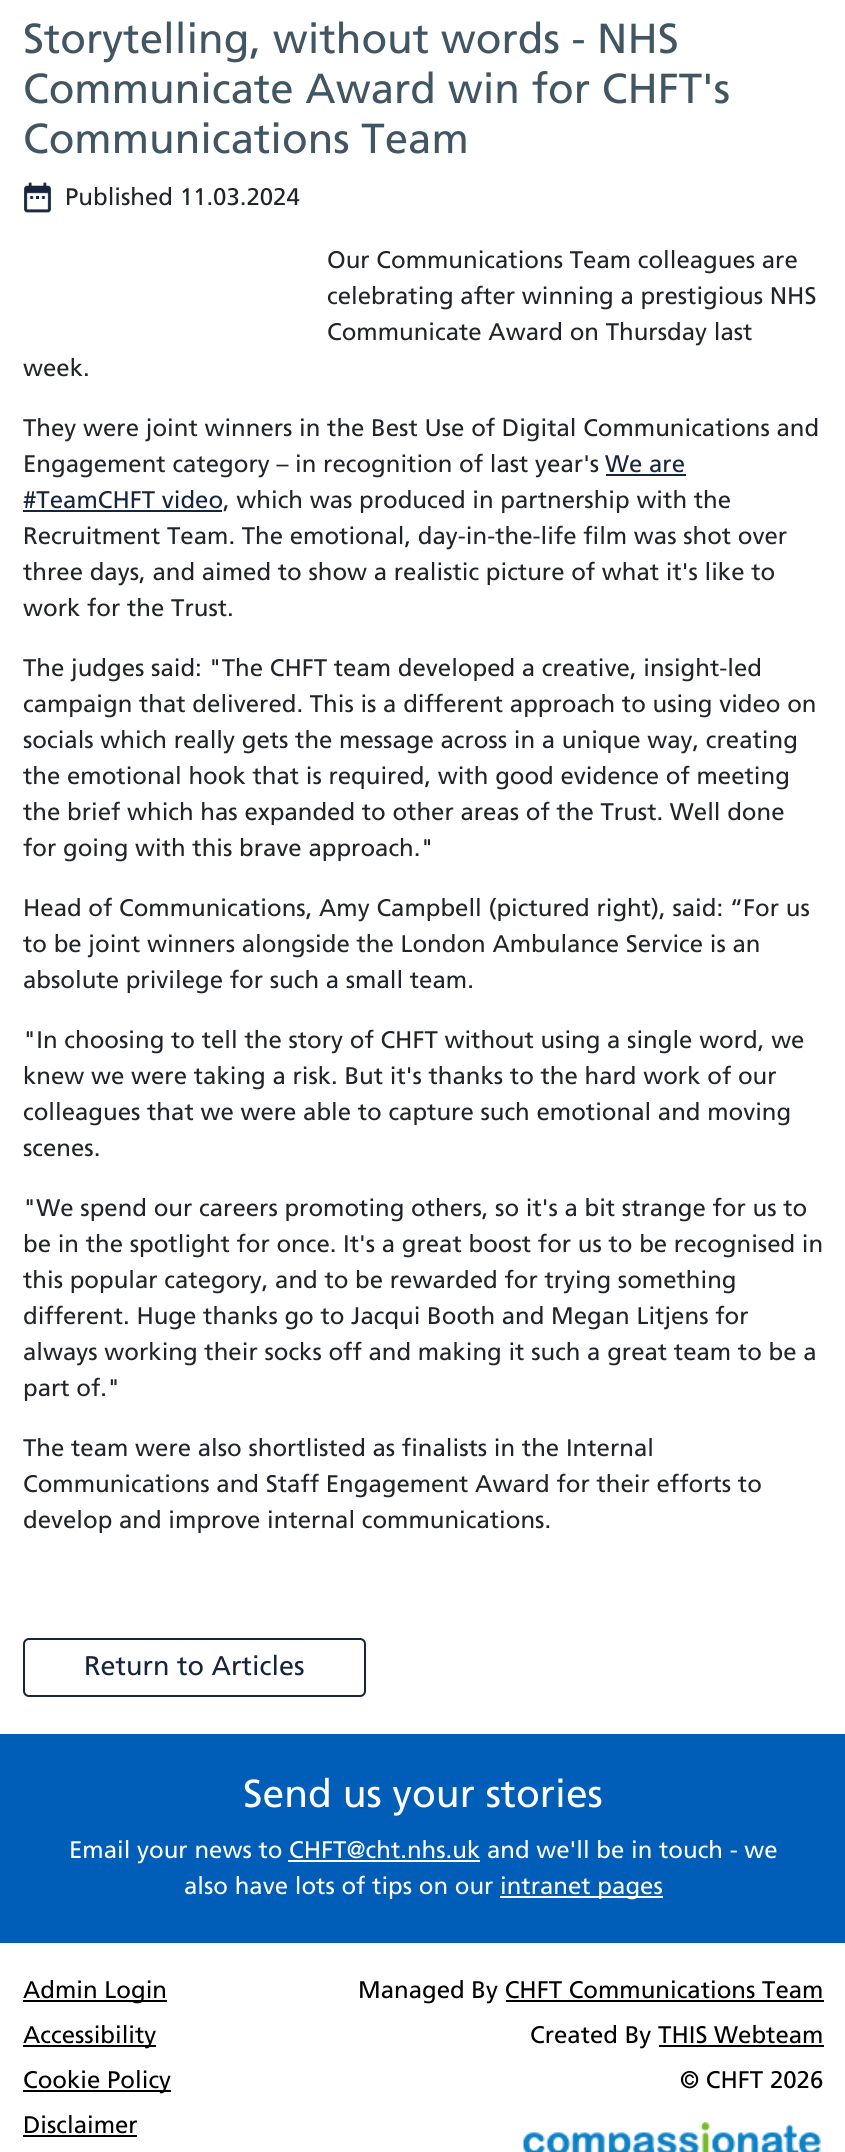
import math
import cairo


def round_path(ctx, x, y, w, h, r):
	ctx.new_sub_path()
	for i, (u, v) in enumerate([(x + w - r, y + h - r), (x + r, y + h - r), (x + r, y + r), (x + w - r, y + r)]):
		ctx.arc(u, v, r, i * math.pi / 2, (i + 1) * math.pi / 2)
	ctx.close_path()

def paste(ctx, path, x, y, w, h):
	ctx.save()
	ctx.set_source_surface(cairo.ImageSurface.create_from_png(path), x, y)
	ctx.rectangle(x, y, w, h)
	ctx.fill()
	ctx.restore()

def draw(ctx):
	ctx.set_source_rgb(1, 1, 1)
	ctx.paint()
	ctx.select_font_face('Frutiger')
	ctx.set_font_size(42)
	ctx.set_source_rgb(0.259, 0.333, 0.388)
	for x, y, s in [
		(23, 53, 'Storytelling, without words - NHS'),
		(23, 103, 'Communicate Award win for CHFT\'s'),
		(23, 153, 'Communications Team'),
	]:
		ctx.move_to(x, y)
		ctx.show_text(s)
	paste(ctx, 'media/1.png', 24, 182, 27, 31)
	ctx.set_font_size(24)
	ctx.set_source_rgb(0.129, 0.145, 0.161)
	for x, y, s in [
		(65, 205, 'Published 11.03.2024'),
		(327, 268, 'Our Communications Team colleagues are'),
		(327, 304, 'celebrating after winning a prestigious NHS'),
		(327, 340, 'Communicate Award on Thursday last'),
		(23, 376, 'week.'),
		(23, 436, 'They were joint winners in the Best Use of Digital Communications and'),
		(23, 472, 'Engagement category – in recognition of last year\'s'),
	]:
		ctx.move_to(x, y)
		ctx.show_text(s)
	ctx.set_source_rgb(0.086, 0.141, 0.243)
	ctx.move_to(605, 472)
	ctx.show_text('We are')
	ctx.rectangle(606, 474, 80, 2)
	ctx.fill()
	ctx.move_to(23, 508)
	ctx.show_text('#TeamCHFT video')
	ctx.rectangle(23, 510, 199, 2)
	ctx.fill()
	ctx.set_source_rgb(0.129, 0.145, 0.161)
	for x, y, s in [
		(223, 508, ', which was produced in partnership with the'),
		(23, 544, 'Recruitment Team. The emotional, day-in-the-life film was shot over'),
		(23, 580, 'three days, and aimed to show a realistic picture of what it\'s like to'),
		(23, 616, 'work for the Trust.'),
		(23, 676, 'The judges said: "The CHFT team developed a creative, insight-led'),
		(23, 712, 'campaign that delivered. This is a different approach to using video on'),
		(23, 748, 'socials which really gets the message across in a unique way, creating'),
		(23, 784, 'the emotional hook that is required, with good evidence of meeting'),
		(23, 820, 'the brief which has expanded to other areas of the Trust. Well done'),
		(23, 856, 'for going with this brave approach."'),
		(23, 916, 'Head of Communications, Amy Campbell (pictured right), said: “For us'),
		(23, 952, 'to be joint winners alongside the London Ambulance Service is an'),
		(23, 988, 'absolute privilege for such a small team.'),
		(23, 1048, '"In choosing to tell the story of CHFT without using a single word, we'),
		(23, 1084, 'knew we were taking a risk. But it\'s thanks to the hard work of our'),
		(23, 1120, 'colleagues that we were able to capture such emotional and moving'),
		(23, 1156, 'scenes.'),
		(23, 1216, '"We spend our careers promoting others, so it\'s a bit strange for us to'),
		(23, 1252, 'be in the spotlight for once. It\'s a great boost for us to be recognised in'),
		(23, 1288, 'this popular category, and to be rewarded for trying something'),
		(23, 1324, 'different. Huge thanks go to Jacqui Booth and Megan Litjens for'),
		(23, 1360, 'always working their socks off and making it such a great team to be a'),
		(23, 1396, 'part of."'),
		(23, 1456, 'The team were also shortlisted as finalists in the Internal'),
		(23, 1492, 'Communications and Staff Engagement Award for their efforts to'),
		(23, 1528, 'develop and improve internal communications.'),
	]:
		ctx.move_to(x, y)
		ctx.show_text(s)
	round_path(ctx, 24, 1639, 341, 57, 5)
	ctx.set_source_rgb(0.09, 0.141, 0.239)
	ctx.stroke()
	ctx.set_font_size(27)
	ctx.set_source_rgb(0.086, 0.141, 0.243)
	ctx.move_to(84, 1675)
	ctx.show_text('Return to Articles')
	ctx.set_source_rgb(0, 0.369, 0.722)
	ctx.rectangle(0, 1734, 845, 209)
	ctx.fill()
	ctx.set_font_size(39)
	ctx.set_source_rgb(1, 1, 1)
	ctx.move_to(243, 1807)
	ctx.show_text('Send us your stories')
	ctx.set_font_size(24)
	ctx.move_to(69, 1858)
	ctx.show_text('Email your news to CHFT@cht.nhs.uk and we\'ll be in touch - we')
	ctx.rectangle(288, 1860, 192, 2)
	ctx.fill()
	ctx.move_to(184, 1894)
	ctx.show_text('also have lots of tips on our')
	ctx.rectangle(500, 1896, 163, 2)
	ctx.fill()
	ctx.move_to(500, 1894)
	ctx.show_text('intranet pages')
	ctx.set_source_rgb(0, 0, 0)
	ctx.rectangle(23, 2000, 144, 2)
	ctx.fill()
	ctx.move_to(23, 1998)
	ctx.show_text('Admin Login')
	ctx.rectangle(23, 2045, 133, 2)
	ctx.fill()
	ctx.move_to(23, 2043)
	ctx.show_text('Accessibility')
	ctx.rectangle(23, 2090, 148, 2)
	ctx.fill()
	ctx.move_to(23, 2088)
	ctx.show_text('Cookie Policy')
	ctx.move_to(23, 2133)
	ctx.show_text('Disclaimer')
	ctx.rectangle(23, 2135, 114, 2)
	ctx.fill()
	ctx.move_to(358, 1998)
	ctx.show_text('Managed By CHFT Communications Team')
	ctx.rectangle(506, 2000, 318, 2)
	ctx.fill()
	ctx.move_to(530, 2043)
	ctx.show_text('Created By THIS Webteam')
	ctx.rectangle(659, 2045, 165, 2)
	ctx.fill()
	ctx.move_to(680, 2088)
	ctx.show_text('© CHFT 2026')
	paste(ctx, 'media/2.png', 523, 2122, 298, 30)


surface = cairo.ImageSurface(cairo.FORMAT_RGB24, 845, 2152)
ctx = cairo.Context(surface)
options = cairo.FontOptions()
options.set_hint_metrics(cairo.HINT_METRICS_OFF)
options.set_hint_style(cairo.HINT_STYLE_NONE)
ctx.set_font_options(options)
ctx.set_miter_limit(4)
draw(ctx)
surface.write_to_png('image.png')
